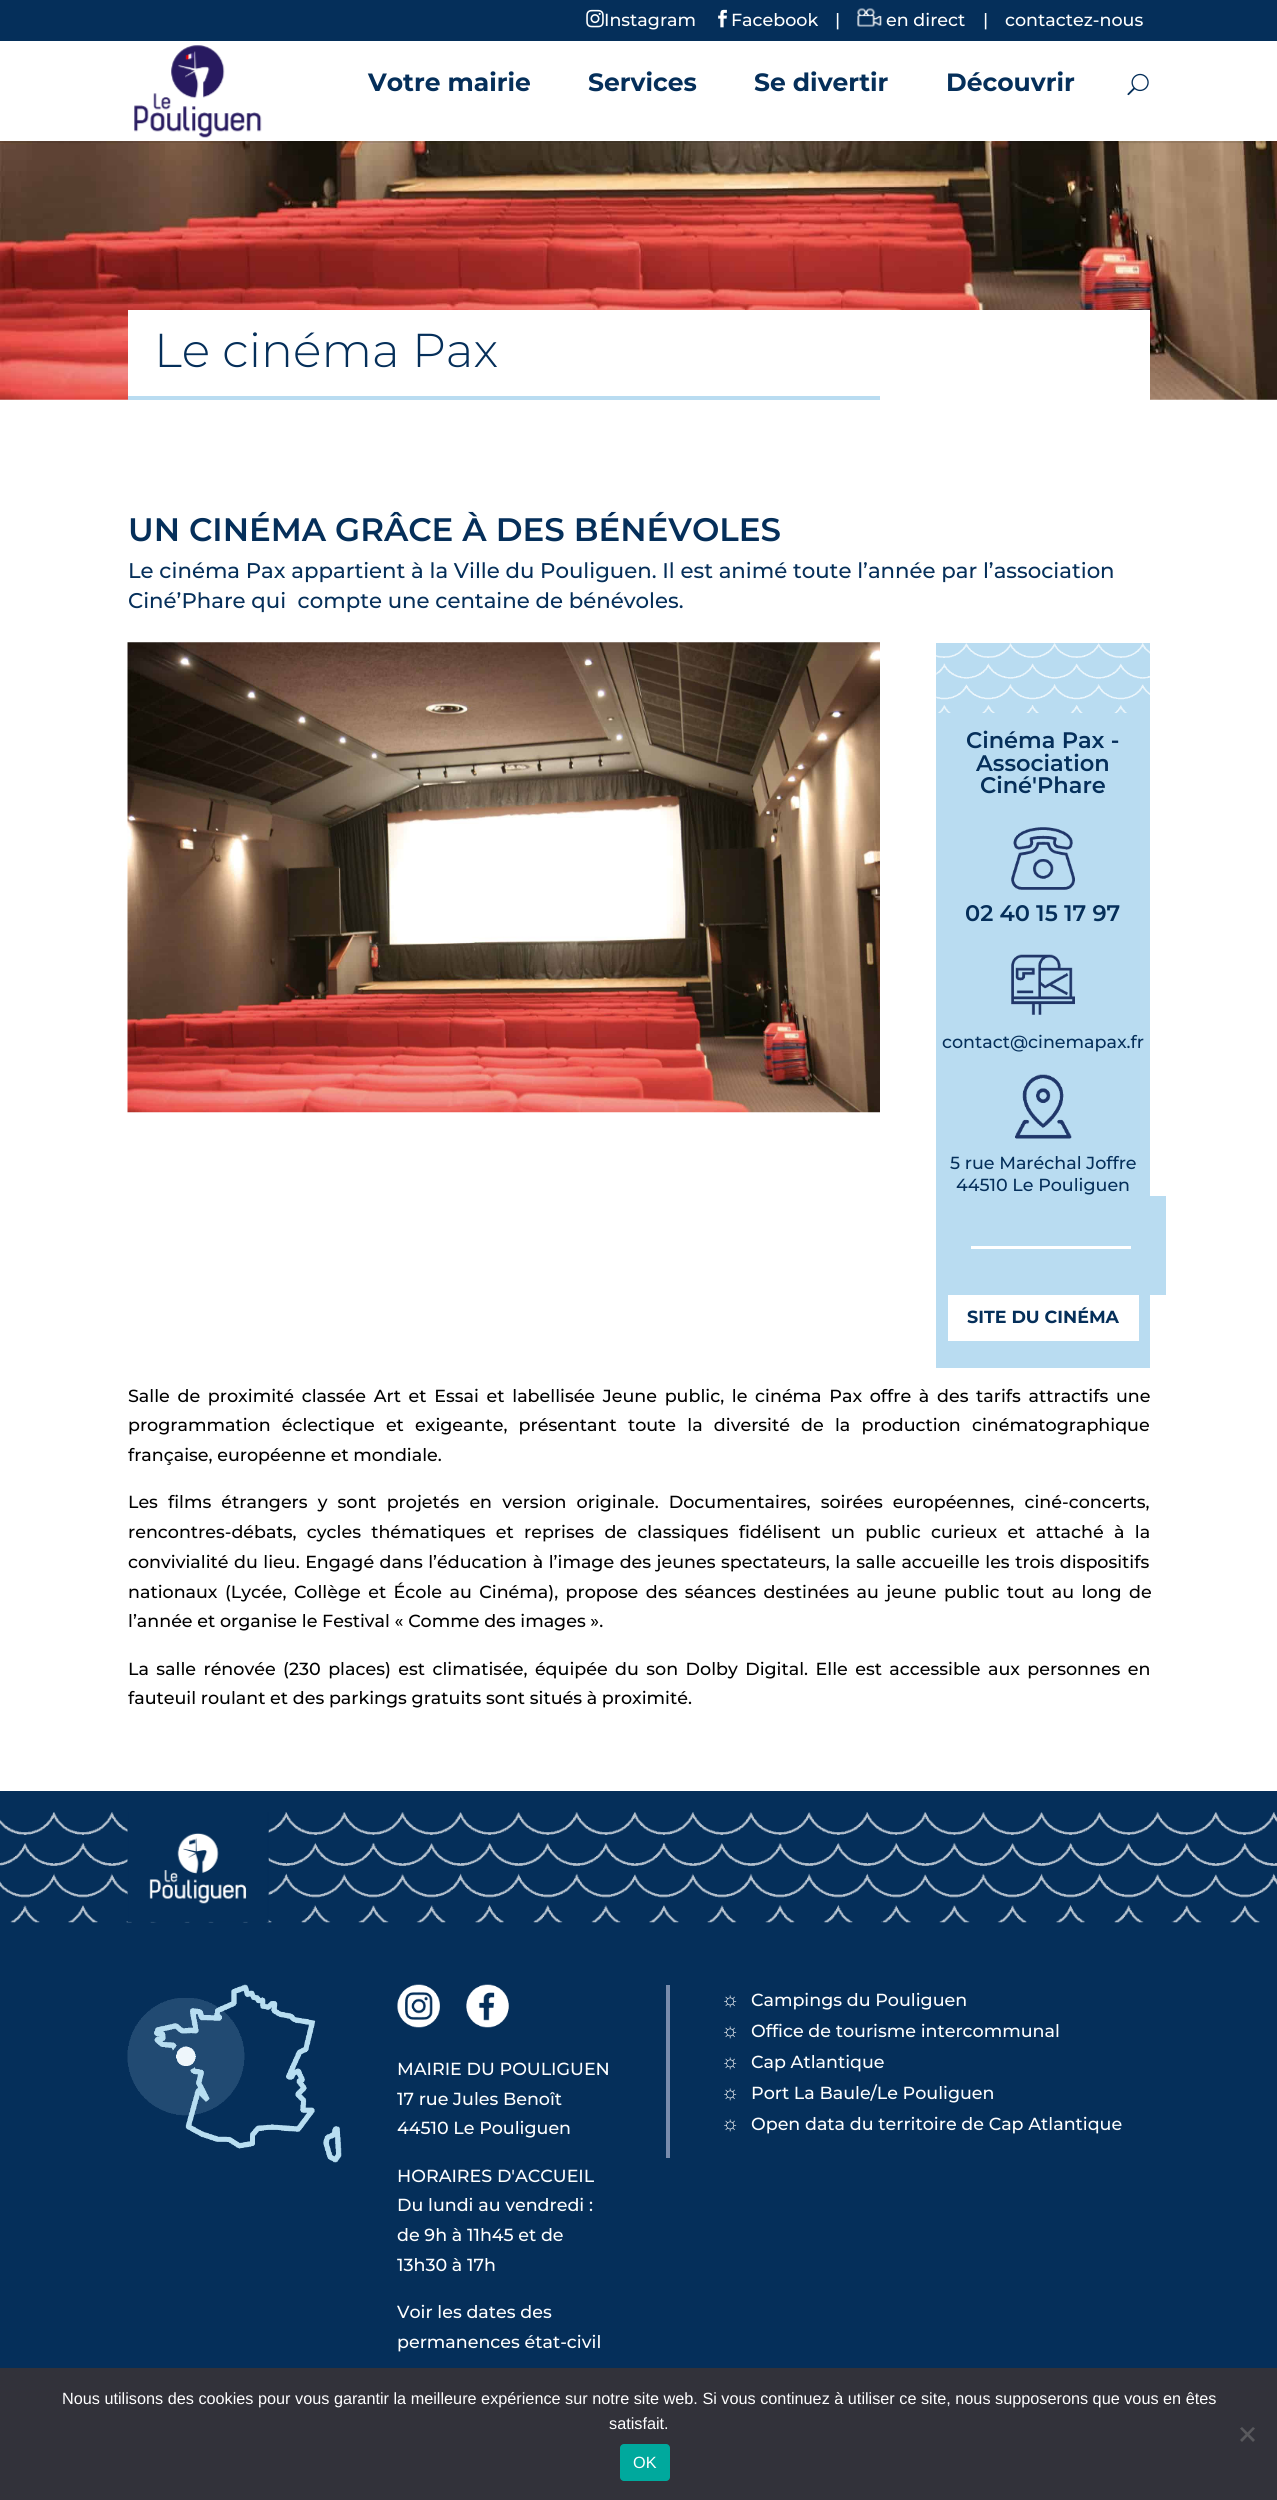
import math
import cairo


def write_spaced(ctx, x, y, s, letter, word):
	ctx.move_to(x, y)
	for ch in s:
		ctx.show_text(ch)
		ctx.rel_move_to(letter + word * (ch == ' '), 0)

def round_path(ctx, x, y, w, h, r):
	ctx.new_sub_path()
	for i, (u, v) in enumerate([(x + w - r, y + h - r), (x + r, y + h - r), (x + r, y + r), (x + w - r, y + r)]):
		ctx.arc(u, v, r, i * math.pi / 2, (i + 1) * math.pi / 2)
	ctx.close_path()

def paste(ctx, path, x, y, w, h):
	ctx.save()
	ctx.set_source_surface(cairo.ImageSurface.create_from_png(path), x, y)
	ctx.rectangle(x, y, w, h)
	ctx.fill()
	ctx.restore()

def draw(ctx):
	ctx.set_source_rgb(1, 1, 1)
	ctx.paint()
	paste(ctx, 'media/6.png', 0, 141, 1277, 259)
	ctx.set_source_rgba(0, 0, 0, 0.1)
	ctx.new_path()
	ctx.move_to(0, 141)
	ctx.line_to(0, 143)
	ctx.line_to(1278, 143)
	ctx.line_to(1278, 1)
	ctx.line_to(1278, 141)
	ctx.close_path()
	ctx.fill()
	ctx.set_source_rgb(0.02, 0.184, 0.353)
	ctx.rectangle(0, 0, 1277, 41)
	ctx.fill()
	paste(ctx, 'media/1.png', 586, 9, 18, 19)
	ctx.select_font_face('Montserrat Medium')
	ctx.set_font_size(17.5)
	ctx.set_source_rgb(1, 1, 1)
	ctx.move_to(604, 26)
	ctx.show_text('Instagram')
	paste(ctx, 'media/2.png', 718, 9, 9, 19)
	ctx.move_to(731, 26)
	ctx.show_text('Facebook')
	ctx.move_to(835, 26)
	ctx.show_text('|')
	paste(ctx, 'media/3.png', 857, 8, 25, 19)
	for x, y, s in [
		(886, 26, 'en direct'),
		(983, 26, '|'),
		(1005, 26, 'contactez-nous'),
	]:
		ctx.move_to(x, y)
		ctx.show_text(s)
	paste(ctx, 'media/4.png', 134, 45, 128, 93)
	ctx.select_font_face('Montserrat', cairo.FONT_SLANT_NORMAL, cairo.FONT_WEIGHT_BOLD)
	ctx.set_font_size(25)
	ctx.set_source_rgb(0.02, 0.184, 0.353)
	for x, y, s in [
		(368, 91, 'Votre mairie'),
		(588, 91, 'Services'),
		(754, 91, 'Se divertir'),
		(946, 91, 'Découvrir'),
	]:
		ctx.move_to(x, y)
		ctx.show_text(s)
	paste(ctx, 'media/5.png', 1127, 73, 22, 23)
	ctx.set_source_rgb(1, 1, 1)
	ctx.rectangle(128, 310, 1022, 90)
	ctx.fill()
	ctx.set_source_rgb(0.725, 0.863, 0.945)
	ctx.rectangle(128, 396, 752, 4)
	ctx.fill()
	ctx.select_font_face('Montserrat Light')
	ctx.set_font_size(47.5)
	ctx.set_source_rgb(0.02, 0.184, 0.353)
	ctx.move_to(154, 367)
	ctx.show_text('Le cinéma Pax')
	ctx.select_font_face('Montserrat SemiBold')
	ctx.set_font_size(32.5)
	ctx.move_to(128, 541)
	ctx.show_text('UN CINÉMA GRÂCE À DES BÉNÉVOLES')
	ctx.select_font_face('Montserrat Medium')
	ctx.set_font_size(21.25)
	ctx.move_to(128, 578)
	ctx.show_text('Le cinéma Pax appartient à la Ville du Pouliguen. Il est animé toute l’année par l’association')
	ctx.move_to(128, 608)
	ctx.show_text('Ciné’Phare qui  compte une centaine de bénévoles.')
	paste(ctx, 'media/7.png', 127, 642, 753, 471)
	ctx.set_source_rgb(0.725, 0.863, 0.945)
	ctx.rectangle(936, 643, 214, 725)
	ctx.fill()
	paste(ctx, 'media/8.png', 936, 643, 214, 70)
	ctx.select_font_face('Montserrat SemiBold')
	ctx.set_font_size(22.5)
	ctx.set_source_rgb(0.02, 0.184, 0.353)
	for x, y, s in [
		(966, 748, 'Cinéma Pax -'),
		(976, 771, 'Association'),
		(980, 793, 'Ciné\'Phare'),
	]:
		ctx.move_to(x, y)
		ctx.show_text(s)
	paste(ctx, 'media/9.png', 1011, 827, 64, 63)
	ctx.move_to(965, 921)
	ctx.show_text('02 40 15 17 97')
	paste(ctx, 'media/10.png', 1011, 954, 64, 61)
	ctx.select_font_face('Montserrat Medium')
	ctx.set_font_size(17.5)
	ctx.move_to(942, 1048)
	ctx.show_text('contact@cinemapax.fr')
	paste(ctx, 'media/11.png', 1015, 1074, 57, 65)
	ctx.move_to(950, 1169)
	ctx.show_text('5 rue Maréchal Joffre')
	ctx.move_to(956, 1191)
	ctx.show_text('44510 Le Pouliguen')
	ctx.set_source_rgb(0.725, 0.863, 0.945)
	ctx.rectangle(1150, 1196, 16, 99)
	ctx.fill()
	ctx.set_source_rgb(1, 1, 1)
	ctx.rectangle(971, 1246, 160, 3)
	ctx.rectangle(948, 1295, 191, 46)
	ctx.fill()
	ctx.select_font_face('Montserrat', cairo.FONT_SLANT_NORMAL, cairo.FONT_WEIGHT_BOLD)
	ctx.set_source_rgb(0.02, 0.184, 0.353)
	ctx.move_to(967, 1323)
	ctx.show_text('SITE DU CINÉMA')
	ctx.select_font_face('Montserrat Medium')
	ctx.set_source_rgb(0, 0, 0)
	write_spaced(ctx, 128, 1402, 'Salle de proximité classée Art et Essai et labellisée Jeune public, le cinéma Pax offre à des tarifs attractifs une', 0, 3)
	write_spaced(ctx, 128, 1431, 'programmation éclectique et exigeante, présentant toute la diversité de la production cinématographique', 0, 6.5)
	ctx.move_to(128, 1461)
	ctx.show_text('française, européenne et mondiale.')
	write_spaced(ctx, 128, 1508, 'Les films étrangers y sont projetés en version originale. Documentaires, soirées européennes, ciné-concerts,', 0, 5.4)
	write_spaced(ctx, 128, 1538, 'rencontres-débats, cycles thématiques et reprises de classiques fidélisent un public curieux et attaché à la', 0, 5.6)
	write_spaced(ctx, 128, 1568, 'convivialité du lieu. Engagé dans l’éducation à l’image des jeunes spectateurs, la salle accueille les trois dispositifs', 0, 0.8)
	write_spaced(ctx, 128, 1598, 'nationaux (Lycée, Collège et École au Cinéma), propose des séances destinées au jeune public tout au long de', 0, 2.75)
	ctx.move_to(128, 1627)
	ctx.show_text('l’année et organise le Festival « Comme des images ».')
	write_spaced(ctx, 128, 1675, 'La salle rénovée (230 places) est climatisée, équipée du son Dolby Digital. Elle est accessible aux personnes en', 0, 2.75)
	ctx.move_to(128, 1704)
	ctx.show_text('fauteuil roulant et des parkings gratuits sont situés à proximité.')
	ctx.set_source_rgb(0.02, 0.184, 0.353)
	ctx.rectangle(0, 1791, 1277, 577)
	ctx.fill()
	paste(ctx, 'media/12.png', 0, 1812, 1277, 111)
	paste(ctx, 'media/13.png', 127, 1812, 142, 111)
	paste(ctx, 'media/14.png', 127, 1984, 215, 179)
	paste(ctx, 'media/15.png', 397, 1984, 43, 44)
	paste(ctx, 'media/16.png', 466, 1984, 43, 44)
	ctx.set_source_rgb(1, 1, 1)
	for x, y, s in [
		(397, 2075, 'MAIRIE DU POULIGUEN'),
		(397, 2105, '17 rue Jules Benoît'),
		(397, 2134, '44510 Le Pouliguen'),
		(397, 2182, 'HORAIRES D\'ACCUEIL'),
		(397, 2211, 'Du lundi au vendredi :'),
		(397, 2241, 'de 9h à 11h45 et de'),
		(397, 2271, '13h30 à 17h'),
		(397, 2318, 'Voir les dates des'),
		(397, 2348, 'permanences état-civil'),
	]:
		ctx.move_to(x, y)
		ctx.show_text(s)
	ctx.set_source_rgb(0.475, 0.549, 0.678)
	ctx.rectangle(666, 1985, 4, 173)
	ctx.fill()
	ctx.select_font_face('Liberation Sans')
	ctx.set_font_size(20)
	ctx.set_source_rgb(1, 1, 1)
	ctx.move_to(721, 2006)
	ctx.show_text('☼')
	ctx.select_font_face('Montserrat Medium')
	ctx.set_font_size(17.5)
	ctx.move_to(751, 2006)
	ctx.show_text('Campings du Pouliguen')
	ctx.select_font_face('Liberation Sans')
	ctx.set_font_size(20)
	ctx.move_to(721, 2037)
	ctx.show_text('☼')
	ctx.select_font_face('Montserrat Medium')
	ctx.set_font_size(17.5)
	ctx.move_to(751, 2037)
	ctx.show_text('Office de tourisme intercommunal')
	ctx.select_font_face('Liberation Sans')
	ctx.set_font_size(20)
	ctx.move_to(721, 2068)
	ctx.show_text('☼')
	ctx.select_font_face('Montserrat Medium')
	ctx.set_font_size(17.5)
	ctx.move_to(751, 2068)
	ctx.show_text('Cap Atlantique')
	ctx.select_font_face('Liberation Sans')
	ctx.set_font_size(20)
	ctx.move_to(721, 2099)
	ctx.show_text('☼')
	ctx.select_font_face('Montserrat Medium')
	ctx.set_font_size(17.5)
	ctx.move_to(751, 2099)
	ctx.show_text('Port La Baule/Le Pouliguen')
	ctx.select_font_face('Liberation Sans')
	ctx.set_font_size(20)
	ctx.move_to(721, 2130)
	ctx.show_text('☼')
	ctx.select_font_face('Montserrat Medium')
	ctx.set_font_size(17.5)
	ctx.move_to(751, 2130)
	ctx.show_text('Open data du territoire de Cap Atlantique')
	ctx.set_source_rgb(0.196, 0.196, 0.227)
	ctx.rectangle(0, 2368, 1277, 132)
	ctx.fill()
	ctx.select_font_face('Liberation Sans')
	ctx.set_font_size(16.25)
	ctx.set_source_rgb(1, 1, 1)
	ctx.move_to(62, 2404)
	ctx.show_text('Nous utilisons des cookies pour vous garantir la meilleure expérience sur notre site web. Si vous continuez à utiliser ce site, nous supposerons que vous en êtes')
	ctx.move_to(609, 2429)
	ctx.show_text('satisfait.')
	ctx.set_source_rgb(0.349, 0.349, 0.365)
	ctx.new_path()
	ctx.move_to(1253, 2427)
	ctx.line_to(1255, 2428.5)
	ctx.line_to(1242, 2442)
	ctx.line_to(1240, 2440)
	ctx.close_path()
	ctx.fill()
	ctx.new_path()
	ctx.move_to(1240, 2428.5)
	ctx.line_to(1242, 2427)
	ctx.line_to(1255, 2440)
	ctx.line_to(1253, 2442)
	ctx.close_path()
	ctx.fill()
	ctx.set_source_rgb(0, 0.663, 0.616)
	round_path(ctx, 620, 2444, 50, 37, 4)
	ctx.fill()
	ctx.set_source_rgb(1, 1, 1)
	ctx.move_to(633, 2468)
	ctx.show_text('OK')


surface = cairo.ImageSurface(cairo.FORMAT_RGB24, 1277, 2500)
ctx = cairo.Context(surface)
options = cairo.FontOptions()
options.set_hint_metrics(cairo.HINT_METRICS_OFF)
options.set_hint_style(cairo.HINT_STYLE_NONE)
ctx.set_font_options(options)
ctx.set_miter_limit(4)
draw(ctx)
surface.write_to_png('image.png')
